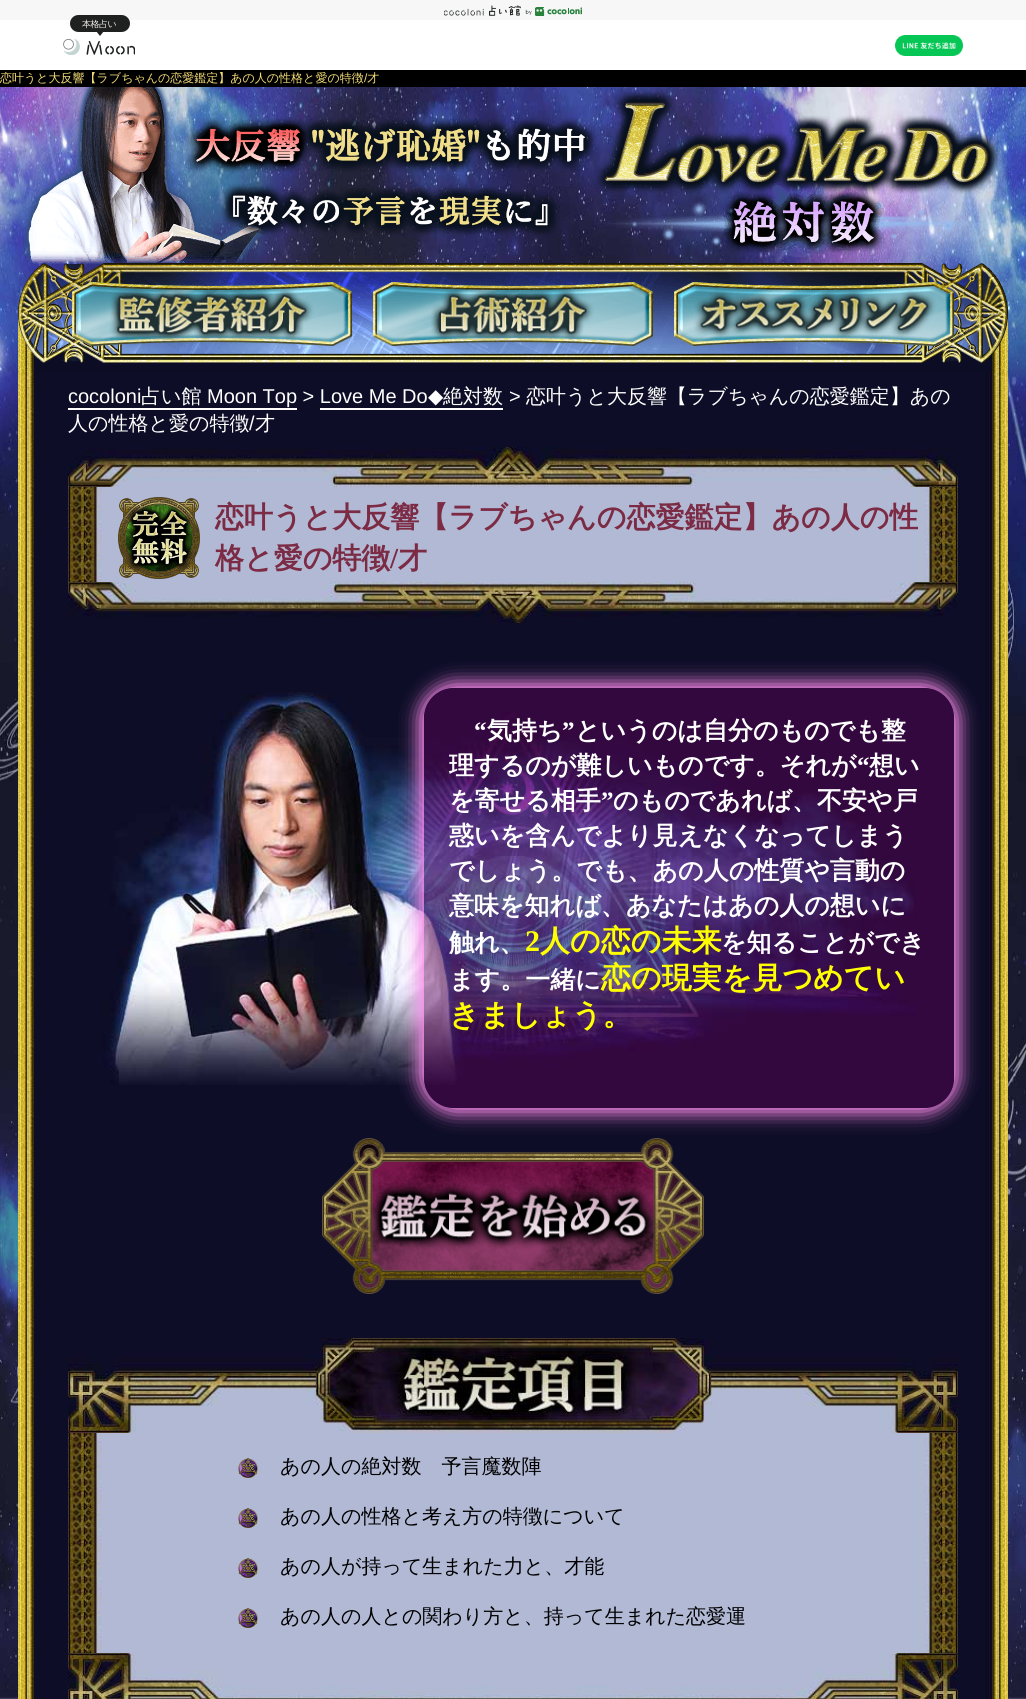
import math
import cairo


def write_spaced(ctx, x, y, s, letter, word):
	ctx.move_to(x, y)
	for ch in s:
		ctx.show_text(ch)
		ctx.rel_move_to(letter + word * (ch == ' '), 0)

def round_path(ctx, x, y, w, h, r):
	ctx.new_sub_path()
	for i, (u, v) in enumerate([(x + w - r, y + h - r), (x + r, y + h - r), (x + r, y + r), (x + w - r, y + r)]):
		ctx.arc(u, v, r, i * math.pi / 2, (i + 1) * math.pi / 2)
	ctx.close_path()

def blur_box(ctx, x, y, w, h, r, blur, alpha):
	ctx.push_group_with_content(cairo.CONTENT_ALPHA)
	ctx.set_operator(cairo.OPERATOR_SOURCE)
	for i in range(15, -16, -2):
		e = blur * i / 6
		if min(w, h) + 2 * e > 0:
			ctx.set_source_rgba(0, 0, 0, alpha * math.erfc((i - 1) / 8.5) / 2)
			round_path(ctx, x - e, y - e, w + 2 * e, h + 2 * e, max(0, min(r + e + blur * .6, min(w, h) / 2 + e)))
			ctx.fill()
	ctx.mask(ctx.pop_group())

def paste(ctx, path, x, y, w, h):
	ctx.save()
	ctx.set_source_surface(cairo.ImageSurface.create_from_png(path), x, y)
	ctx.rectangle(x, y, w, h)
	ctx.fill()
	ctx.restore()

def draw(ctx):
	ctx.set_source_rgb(1, 1, 1)
	ctx.paint()
	ctx.set_source_rgb(0.965, 0.965, 0.965)
	ctx.rectangle(0, 0, 1026, 20)
	ctx.fill()
	paste(ctx, 'media/1.png', 444, 5, 138, 11)
	ctx.set_source_rgb(0.122, 0.129, 0.129)
	round_path(ctx, 70, 15, 60, 17, 8.5)
	ctx.fill()
	ctx.select_font_face('WenQuanYi Zen Hei Medium')
	ctx.set_font_size(9)
	ctx.set_source_rgb(0.965, 0.957, 0.933)
	write_spaced(ctx, 82, 27, '本格占い', -0.5, 0)
	ctx.set_source_rgb(0.122, 0.129, 0.129)
	ctx.new_path()
	ctx.move_to(96, 31)
	ctx.line_to(104, 31)
	ctx.line_to(100, 36)
	ctx.close_path()
	ctx.fill()
	paste(ctx, 'media/2.png', 63, 39, 72, 16)
	paste(ctx, 'media/3.png', 895, 35, 68, 21)
	ctx.set_source_rgb(0, 0, 0)
	ctx.rectangle(0, 70, 1026, 17)
	ctx.fill()
	ctx.set_font_size(12)
	ctx.set_source_rgb(0.957, 0.867, 0.467)
	ctx.move_to(0, 82)
	ctx.show_text('恋叶うと大反響【ラブちゃんの恋愛鑑定】あの人の性格と愛の特徴 才')
	ctx.select_font_face('Liberation Sans')
	ctx.move_to(364, 82)
	ctx.show_text('/')
	paste(ctx, 'media/4.png', 0, 87, 1026, 1612)
	paste(ctx, 'media/5.png', 23, 87, 977, 177)
	paste(ctx, 'media/6.png', 23, 87, 977, 177)
	paste(ctx, 'media/7.png', 18, 263, 990, 110)
	paste(ctx, 'media/8.png', 72, 282, 280, 64)
	paste(ctx, 'media/9.png', 373, 282, 280, 64)
	paste(ctx, 'media/10.png', 674, 282, 280, 64)
	paste(ctx, 'media/11.png', 18, 373, 990, 74)
	ctx.set_font_size(20)
	ctx.set_source_rgb(1, 1, 1)
	ctx.move_to(68, 403)
	ctx.show_text('cocoloni')
	ctx.select_font_face('WenQuanYi Zen Hei Medium')
	ctx.move_to(141, 403)
	ctx.show_text('占い館')
	ctx.select_font_face('Liberation Sans')
	ctx.move_to(207, 403)
	ctx.show_text('Moon Top > Love Me Do')
	ctx.rectangle(68, 408, 229, 2)
	ctx.fill()
	ctx.select_font_face('DejaVu Sans')
	ctx.move_to(428, 403)
	ctx.show_text('◆')
	ctx.rectangle(320, 408, 183, 2)
	ctx.fill()
	ctx.select_font_face('WenQuanYi Zen Hei Medium')
	ctx.move_to(443, 403)
	ctx.show_text('絶対数')
	ctx.select_font_face('Liberation Sans')
	ctx.move_to(509, 403)
	ctx.show_text('>')
	ctx.select_font_face('WenQuanYi Zen Hei Medium')
	ctx.move_to(526, 403)
	ctx.show_text('恋叶うと大反響【ラブちゃんの恋愛鑑定】あの')
	ctx.move_to(68, 430)
	ctx.show_text('人の性格と愛の特徴')
	ctx.select_font_face('Liberation Sans')
	ctx.move_to(249, 430)
	ctx.show_text('/')
	ctx.select_font_face('WenQuanYi Zen Hei Medium')
	ctx.move_to(255, 430)
	ctx.show_text('才')
	paste(ctx, 'media/12.png', 18, 447, 990, 1252)
	paste(ctx, 'media/13.png', 68, 447, 890, 40)
	paste(ctx, 'media/14.png', 68, 487, 890, 95)
	paste(ctx, 'media/15.png', 118, 497, 82, 82)
	ctx.select_font_face('WenQuanYi Zen Hei', cairo.FONT_SLANT_NORMAL, cairo.FONT_WEIGHT_BOLD)
	ctx.set_font_size(29)
	ctx.set_source_rgb(0.486, 0.169, 0.267)
	ctx.move_to(215, 527)
	ctx.show_text('恋叶うと大反響【ラブちゃんの恋愛鑑定】あの人の性')
	ctx.move_to(215, 568)
	ctx.show_text('格と愛の特徴')
	ctx.select_font_face('Liberation Serif', cairo.FONT_SLANT_NORMAL, cairo.FONT_WEIGHT_BOLD)
	ctx.move_to(390, 568)
	ctx.show_text('/')
	ctx.select_font_face('WenQuanYi Zen Hei', cairo.FONT_SLANT_NORMAL, cairo.FONT_WEIGHT_BOLD)
	ctx.move_to(398, 568)
	ctx.show_text('才')
	paste(ctx, 'media/16.png', 68, 582, 890, 41)
	paste(ctx, 'media/17.png', 103, 692, 813, 393)
	ctx.save()
	ctx.set_fill_rule(cairo.FILL_RULE_EVEN_ODD)
	ctx.new_path()
	ctx.move_to(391, 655)
	ctx.line_to(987, 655)
	ctx.line_to(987, 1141)
	ctx.line_to(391, 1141)
	ctx.close_path()
	ctx.move_to(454, 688)
	ctx.line_to(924, 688)
	ctx.curve_to(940.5, 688, 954, 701.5, 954, 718)
	ctx.line_to(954, 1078)
	ctx.curve_to(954, 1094.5, 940.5, 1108, 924, 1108)
	ctx.line_to(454, 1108)
	ctx.curve_to(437.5, 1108, 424, 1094.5, 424, 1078)
	ctx.line_to(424, 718)
	ctx.curve_to(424, 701.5, 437.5, 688, 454, 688)
	ctx.close_path()
	ctx.clip()
	ctx.set_source_rgb(0.988, 0.537, 0.918)
	blur_box(ctx, 424, 688, 530, 420, 30, 10.5, 1)
	blur_box(ctx, 424, 688, 530, 420, 30, 10.5, 1)
	ctx.restore()
	ctx.set_source_rgba(0.42, 0.008, 0.396, 0.4)
	round_path(ctx, 424, 688, 530, 420, 30)
	ctx.fill()
	ctx.select_font_face('Liberation Serif', cairo.FONT_SLANT_NORMAL, cairo.FONT_WEIGHT_BOLD)
	ctx.set_font_size(25)
	ctx.set_source_rgb(1, 1, 1)
	ctx.move_to(474, 739)
	ctx.show_text('“')
	ctx.select_font_face('WenQuanYi Zen Hei', cairo.FONT_SLANT_NORMAL, cairo.FONT_WEIGHT_BOLD)
	ctx.move_to(487, 739)
	ctx.show_text('気持ち')
	ctx.select_font_face('Liberation Serif', cairo.FONT_SLANT_NORMAL, cairo.FONT_WEIGHT_BOLD)
	ctx.move_to(562, 739)
	ctx.show_text('”')
	ctx.select_font_face('WenQuanYi Zen Hei', cairo.FONT_SLANT_NORMAL, cairo.FONT_WEIGHT_BOLD)
	ctx.move_to(575, 739)
	ctx.show_text('というのは自分のものでも整')
	ctx.move_to(449, 774)
	ctx.show_text('理するのが難しいものです。それが')
	ctx.select_font_face('Liberation Serif', cairo.FONT_SLANT_NORMAL, cairo.FONT_WEIGHT_BOLD)
	ctx.move_to(857, 774)
	ctx.show_text('“')
	ctx.select_font_face('WenQuanYi Zen Hei', cairo.FONT_SLANT_NORMAL, cairo.FONT_WEIGHT_BOLD)
	ctx.move_to(869, 774)
	ctx.show_text('想い')
	ctx.move_to(449, 809)
	ctx.show_text('を寄せる相手')
	ctx.select_font_face('Liberation Serif', cairo.FONT_SLANT_NORMAL, cairo.FONT_WEIGHT_BOLD)
	ctx.move_to(601, 809)
	ctx.show_text('”')
	ctx.select_font_face('WenQuanYi Zen Hei', cairo.FONT_SLANT_NORMAL, cairo.FONT_WEIGHT_BOLD)
	for x, y, s in [
		(613, 809, 'のものであれば、不安や戸'),
		(449, 844, '惑いを含んでより見えなくなってしまう'),
		(449, 879, 'でしょう。でも、あの人の性質や言動の'),
		(449, 914, '意味を知れば、あなたはあの人の想いに'),
		(449, 951, '触れ、'),
	]:
		ctx.move_to(x, y)
		ctx.show_text(s)
	ctx.select_font_face('Liberation Serif', cairo.FONT_SLANT_NORMAL, cairo.FONT_WEIGHT_BOLD)
	ctx.set_font_size(30)
	ctx.set_source_rgb(1, 1, 0)
	ctx.move_to(525, 951)
	ctx.show_text('2')
	ctx.select_font_face('WenQuanYi Zen Hei', cairo.FONT_SLANT_NORMAL, cairo.FONT_WEIGHT_BOLD)
	ctx.move_to(540, 951)
	ctx.show_text('人の恋の未来')
	ctx.set_font_size(25)
	ctx.set_source_rgb(1, 1, 1)
	ctx.move_to(721, 951)
	ctx.show_text('を知ることができ')
	ctx.move_to(449, 988)
	ctx.show_text('ます。一緒に')
	ctx.set_font_size(30)
	ctx.set_source_rgb(1, 1, 0)
	ctx.move_to(601, 988)
	ctx.show_text('恋の現実を見つめてい')
	ctx.move_to(449, 1025)
	ctx.show_text('きましょう。')
	paste(ctx, 'media/18.png', 322, 1138, 382, 156)
	paste(ctx, 'media/19.png', 68, 1338, 890, 95)
	paste(ctx, 'media/20.png', 68, 1433, 890, 220)
	paste(ctx, 'media/21.png', 238, 1458, 20, 20)
	ctx.select_font_face('WenQuanYi Zen Hei Medium')
	ctx.set_font_size(20)
	ctx.set_source_rgb(0, 0, 0)
	ctx.move_to(280, 1473)
	ctx.show_text('あの人の絶対数　予言魔数陣')
	paste(ctx, 'media/21.png', 238, 1508, 20, 20)
	ctx.move_to(280, 1523)
	ctx.show_text('あの人の性格と考え方の特徴について')
	paste(ctx, 'media/21.png', 238, 1558, 20, 20)
	ctx.move_to(280, 1573)
	ctx.show_text('あの人が持って生まれた力と、才能')
	paste(ctx, 'media/21.png', 238, 1608, 20, 20)
	ctx.move_to(280, 1623)
	ctx.show_text('あの人の人との関わり方と、持って生まれた恋愛運')
	paste(ctx, 'media/22.png', 68, 1653, 890, 46)


surface = cairo.ImageSurface(cairo.FORMAT_RGB24, 1026, 1699)
ctx = cairo.Context(surface)
options = cairo.FontOptions()
options.set_hint_metrics(cairo.HINT_METRICS_OFF)
options.set_hint_style(cairo.HINT_STYLE_NONE)
ctx.set_font_options(options)
ctx.set_miter_limit(4)
draw(ctx)
surface.write_to_png('image.png')
